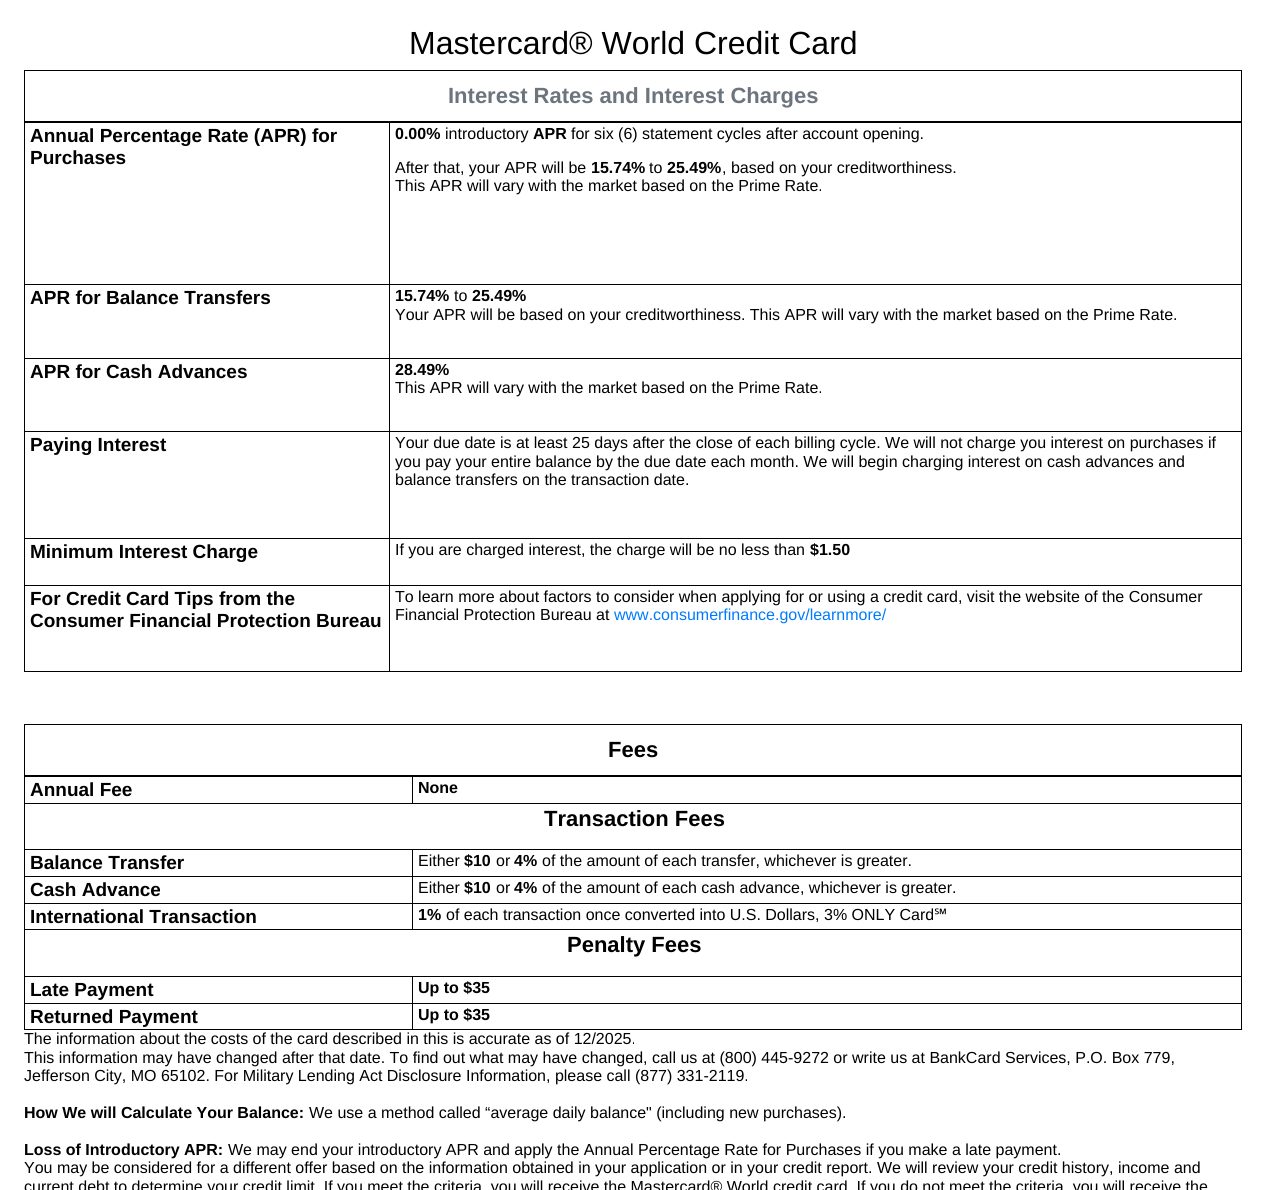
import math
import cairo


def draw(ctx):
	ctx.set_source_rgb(1, 1, 1)
	ctx.paint()
	ctx.select_font_face('Liberation Sans')
	ctx.set_font_size(32)
	ctx.set_source_rgb(0, 0, 0)
	ctx.move_to(409, 54)
	ctx.show_text('Mastercard® World Credit Card')
	ctx.rectangle(1241, 122, 1, 550)
	ctx.rectangle(24, 671, 1218, 1)
	ctx.rectangle(24, 122, 1, 550)
	ctx.fill()
	ctx.rectangle(24.5, 70.5, 1217, 51)
	ctx.set_line_width(1)
	ctx.stroke()
	ctx.select_font_face('Liberation Sans', cairo.FONT_SLANT_NORMAL, cairo.FONT_WEIGHT_BOLD)
	ctx.set_font_size(22)
	ctx.set_source_rgb(0.424, 0.459, 0.49)
	ctx.move_to(448, 103)
	ctx.show_text('Interest Rates and Interest Charges')
	ctx.set_source_rgb(0, 0, 0)
	ctx.rectangle(389, 122, 853, 1)
	ctx.rectangle(389, 284, 853, 1)
	ctx.rectangle(389, 358, 853, 1)
	ctx.rectangle(389, 431, 853, 1)
	ctx.rectangle(389, 538, 853, 1)
	ctx.rectangle(389, 585, 853, 1)
	ctx.rectangle(389, 585, 1, 87)
	ctx.rectangle(24, 585, 366, 1)
	ctx.rectangle(389, 538, 1, 48)
	ctx.rectangle(24, 538, 366, 1)
	ctx.rectangle(389, 431, 1, 108)
	ctx.rectangle(24, 431, 366, 1)
	ctx.rectangle(389, 358, 1, 74)
	ctx.rectangle(24, 358, 366, 1)
	ctx.rectangle(389, 284, 1, 75)
	ctx.rectangle(24, 284, 366, 1)
	ctx.rectangle(389, 122, 1, 163)
	ctx.rectangle(24, 122, 366, 1)
	ctx.fill()
	ctx.set_font_size(19)
	ctx.move_to(30, 142)
	ctx.show_text('Annual Percentage Rate (APR) for')
	ctx.move_to(30, 164)
	ctx.show_text('Purchases')
	ctx.set_font_size(16)
	ctx.move_to(395, 139)
	ctx.show_text('0.00%')
	ctx.select_font_face('Liberation Sans')
	ctx.move_to(445, 139)
	ctx.show_text('introductory')
	ctx.select_font_face('Liberation Sans', cairo.FONT_SLANT_NORMAL, cairo.FONT_WEIGHT_BOLD)
	ctx.move_to(533, 139)
	ctx.show_text('APR')
	ctx.select_font_face('Liberation Sans')
	ctx.move_to(571, 139)
	ctx.show_text('for six (6) statement cycles after account opening.')
	ctx.move_to(395, 173)
	ctx.show_text('After that, your APR will be')
	ctx.select_font_face('Liberation Sans', cairo.FONT_SLANT_NORMAL, cairo.FONT_WEIGHT_BOLD)
	ctx.move_to(591, 173)
	ctx.show_text('15.74%')
	ctx.select_font_face('Liberation Sans')
	ctx.move_to(649, 173)
	ctx.show_text('to')
	ctx.select_font_face('Liberation Sans', cairo.FONT_SLANT_NORMAL, cairo.FONT_WEIGHT_BOLD)
	ctx.move_to(667, 173)
	ctx.show_text('25.49%')
	ctx.select_font_face('Liberation Sans')
	ctx.move_to(722, 173)
	ctx.show_text(', based on your creditworthiness.')
	ctx.move_to(395, 191)
	ctx.show_text('This APR will vary with the market based on the Prime Rate.')
	ctx.select_font_face('Liberation Sans', cairo.FONT_SLANT_NORMAL, cairo.FONT_WEIGHT_BOLD)
	ctx.set_font_size(19)
	ctx.move_to(30, 304)
	ctx.show_text('APR for Balance Transfers')
	ctx.set_font_size(16)
	ctx.move_to(395, 301)
	ctx.show_text('15.74%')
	ctx.select_font_face('Liberation Sans')
	ctx.move_to(454, 301)
	ctx.show_text('to')
	ctx.select_font_face('Liberation Sans', cairo.FONT_SLANT_NORMAL, cairo.FONT_WEIGHT_BOLD)
	ctx.move_to(472, 301)
	ctx.show_text('25.49%')
	ctx.select_font_face('Liberation Sans')
	ctx.move_to(395, 320)
	ctx.show_text('Your APR will be based on your creditworthiness. This APR will vary with the market based on the Prime Rate.')
	ctx.select_font_face('Liberation Sans', cairo.FONT_SLANT_NORMAL, cairo.FONT_WEIGHT_BOLD)
	ctx.set_font_size(19)
	ctx.move_to(30, 378)
	ctx.show_text('APR for Cash Advances')
	ctx.set_font_size(16)
	ctx.move_to(395, 375)
	ctx.show_text('28.49%')
	ctx.select_font_face('Liberation Sans')
	ctx.move_to(395, 393)
	ctx.show_text('This APR will vary with the market based on the Prime Rate.')
	ctx.select_font_face('Liberation Sans', cairo.FONT_SLANT_NORMAL, cairo.FONT_WEIGHT_BOLD)
	ctx.set_font_size(19)
	ctx.move_to(30, 451)
	ctx.show_text('Paying Interest')
	ctx.select_font_face('Liberation Sans')
	ctx.set_font_size(16)
	for x, y, s in [
		(395, 448, 'Your due date is at least 25 days after the close of each billing cycle. We will not charge you interest on purchases if'),
		(395, 467, 'you pay your entire balance by the due date each month. We will begin charging interest on cash advances and'),
		(395, 485, 'balance transfers on the transaction date.'),
	]:
		ctx.move_to(x, y)
		ctx.show_text(s)
	ctx.select_font_face('Liberation Sans', cairo.FONT_SLANT_NORMAL, cairo.FONT_WEIGHT_BOLD)
	ctx.set_font_size(19)
	ctx.move_to(30, 558)
	ctx.show_text('Minimum Interest Charge')
	ctx.select_font_face('Liberation Sans')
	ctx.set_font_size(16)
	ctx.move_to(395, 555)
	ctx.show_text('If you are charged interest, the charge will be no less than')
	ctx.select_font_face('Liberation Sans', cairo.FONT_SLANT_NORMAL, cairo.FONT_WEIGHT_BOLD)
	ctx.move_to(810, 555)
	ctx.show_text('$1.50')
	ctx.set_font_size(19)
	ctx.move_to(30, 605)
	ctx.show_text('For Credit Card Tips from the')
	ctx.move_to(30, 627)
	ctx.show_text('Consumer Financial Protection Bureau')
	ctx.select_font_face('Liberation Sans')
	ctx.set_font_size(16)
	ctx.move_to(395, 602)
	ctx.show_text('To learn more about factors to consider when applying for or using a credit card, visit the website of the Consumer')
	ctx.move_to(395, 620)
	ctx.show_text('Financial Protection Bureau at')
	ctx.set_source_rgb(0, 0.482, 1)
	ctx.move_to(614, 620)
	ctx.show_text('www.consumerfinance.gov/learnmore/')
	ctx.set_source_rgb(0, 0, 0)
	ctx.rectangle(1241, 776, 1, 254)
	ctx.rectangle(24, 1029, 1218, 1)
	ctx.rectangle(24, 776, 1, 254)
	ctx.fill()
	ctx.rectangle(24.5, 724.5, 1217, 51)
	ctx.stroke()
	ctx.select_font_face('Liberation Sans', cairo.FONT_SLANT_NORMAL, cairo.FONT_WEIGHT_BOLD)
	ctx.set_font_size(22)
	ctx.move_to(608, 757)
	ctx.show_text('Fees')
	ctx.rectangle(412, 776, 830, 1)
	ctx.rectangle(24, 803, 1218, 1)
	ctx.rectangle(412, 776, 1, 28)
	ctx.rectangle(24, 776, 389, 1)
	ctx.fill()
	ctx.set_font_size(19)
	ctx.move_to(30, 796)
	ctx.show_text('Annual Fee')
	ctx.set_font_size(16)
	ctx.move_to(418, 793)
	ctx.show_text('None')
	ctx.set_font_size(22)
	ctx.move_to(544, 826)
	ctx.show_text('Transaction Fees')
	ctx.rectangle(412, 849, 830, 1)
	ctx.rectangle(412, 876, 830, 1)
	ctx.rectangle(412, 903, 830, 1)
	ctx.rectangle(24, 929, 1218, 1)
	ctx.rectangle(412, 903, 1, 27)
	ctx.rectangle(24, 903, 389, 1)
	ctx.rectangle(412, 876, 1, 28)
	ctx.rectangle(24, 876, 389, 1)
	ctx.rectangle(412, 849, 1, 28)
	ctx.rectangle(24, 849, 389, 1)
	ctx.fill()
	ctx.set_font_size(19)
	ctx.move_to(30, 869)
	ctx.show_text('Balance Transfer')
	ctx.select_font_face('Liberation Sans')
	ctx.set_font_size(16)
	ctx.move_to(418, 866)
	ctx.show_text('Either')
	ctx.select_font_face('Liberation Sans', cairo.FONT_SLANT_NORMAL, cairo.FONT_WEIGHT_BOLD)
	ctx.move_to(464, 866)
	ctx.show_text('$10')
	ctx.select_font_face('Liberation Sans')
	ctx.move_to(496, 866)
	ctx.show_text('or')
	ctx.select_font_face('Liberation Sans', cairo.FONT_SLANT_NORMAL, cairo.FONT_WEIGHT_BOLD)
	ctx.move_to(514, 866)
	ctx.show_text('4%')
	ctx.select_font_face('Liberation Sans')
	ctx.move_to(542, 866)
	ctx.show_text('of the amount of each transfer, whichever is greater.')
	ctx.select_font_face('Liberation Sans', cairo.FONT_SLANT_NORMAL, cairo.FONT_WEIGHT_BOLD)
	ctx.set_font_size(19)
	ctx.move_to(30, 896)
	ctx.show_text('Cash Advance')
	ctx.select_font_face('Liberation Sans')
	ctx.set_font_size(16)
	ctx.move_to(418, 893)
	ctx.show_text('Either')
	ctx.select_font_face('Liberation Sans', cairo.FONT_SLANT_NORMAL, cairo.FONT_WEIGHT_BOLD)
	ctx.move_to(464, 893)
	ctx.show_text('$10')
	ctx.select_font_face('Liberation Sans')
	ctx.move_to(496, 893)
	ctx.show_text('or')
	ctx.select_font_face('Liberation Sans', cairo.FONT_SLANT_NORMAL, cairo.FONT_WEIGHT_BOLD)
	ctx.move_to(514, 893)
	ctx.show_text('4%')
	ctx.select_font_face('Liberation Sans')
	ctx.move_to(542, 893)
	ctx.show_text('of the amount of each cash advance, whichever is greater.')
	ctx.select_font_face('Liberation Sans', cairo.FONT_SLANT_NORMAL, cairo.FONT_WEIGHT_BOLD)
	ctx.set_font_size(19)
	ctx.move_to(30, 923)
	ctx.show_text('International Transaction')
	ctx.set_font_size(16)
	ctx.move_to(418, 920)
	ctx.show_text('1%')
	ctx.select_font_face('Liberation Sans')
	ctx.move_to(446, 920)
	ctx.show_text('of each transaction once converted into U.S. Dollars, 3% ONLY Card')
	ctx.select_font_face('Noto Sans')
	ctx.move_to(934, 920)
	ctx.show_text('℠')
	ctx.select_font_face('Liberation Sans', cairo.FONT_SLANT_NORMAL, cairo.FONT_WEIGHT_BOLD)
	ctx.set_font_size(22)
	ctx.move_to(567, 952)
	ctx.show_text('Penalty Fees')
	ctx.rectangle(412, 976, 830, 1)
	ctx.rectangle(412, 1003, 830, 1)
	ctx.rectangle(412, 1003, 1, 27)
	ctx.rectangle(24, 1003, 389, 1)
	ctx.rectangle(412, 976, 1, 28)
	ctx.rectangle(24, 976, 389, 1)
	ctx.fill()
	ctx.set_font_size(19)
	ctx.move_to(30, 996)
	ctx.show_text('Late Payment')
	ctx.set_font_size(16)
	ctx.move_to(418, 993)
	ctx.show_text('Up to $35')
	ctx.set_font_size(19)
	ctx.move_to(30, 1023)
	ctx.show_text('Returned Payment')
	ctx.set_font_size(16)
	ctx.move_to(418, 1020)
	ctx.show_text('Up to $35')
	ctx.select_font_face('Liberation Sans')
	for x, y, s in [
		(24, 1044, 'The information about the costs of the card described in this is accurate as of 12/2025.'),
		(24, 1063, 'This information may have changed after that date. To find out what may have changed, call us at (800) 445-9272 or write us at BankCard Services, P.O. Box 779,'),
		(24, 1081, 'Jefferson City, MO 65102. For Military Lending Act Disclosure Information, please call (877) 331-2119.'),
	]:
		ctx.move_to(x, y)
		ctx.show_text(s)
	ctx.select_font_face('Liberation Sans', cairo.FONT_SLANT_NORMAL, cairo.FONT_WEIGHT_BOLD)
	ctx.move_to(24, 1118)
	ctx.show_text('How We will Calculate Your Balance:')
	ctx.select_font_face('Liberation Sans')
	ctx.move_to(309, 1118)
	ctx.show_text('We use a method called “average daily balance" (including new purchases).')
	ctx.select_font_face('Liberation Sans', cairo.FONT_SLANT_NORMAL, cairo.FONT_WEIGHT_BOLD)
	ctx.move_to(24, 1155)
	ctx.show_text('Loss of Introductory APR:')
	ctx.select_font_face('Liberation Sans')
	for x, y, s in [
		(228, 1155, 'We may end your introductory APR and apply the Annual Percentage Rate for Purchases if you make a late payment.'),
		(24, 1173, 'You may be considered for a different offer based on the information obtained in your application or in your credit report. We will review your credit history, income and'),
		(24, 1192, 'current debt to determine your credit limit. If you meet the criteria, you will receive the Mastercard® World credit card. If you do not meet the criteria, you will receive the'),
	]:
		ctx.move_to(x, y)
		ctx.show_text(s)


surface = cairo.ImageSurface(cairo.FORMAT_RGB24, 1266, 1190)
ctx = cairo.Context(surface)
options = cairo.FontOptions()
options.set_hint_metrics(cairo.HINT_METRICS_OFF)
options.set_hint_style(cairo.HINT_STYLE_NONE)
ctx.set_font_options(options)
ctx.set_miter_limit(4)
draw(ctx)
surface.write_to_png('image.png')
